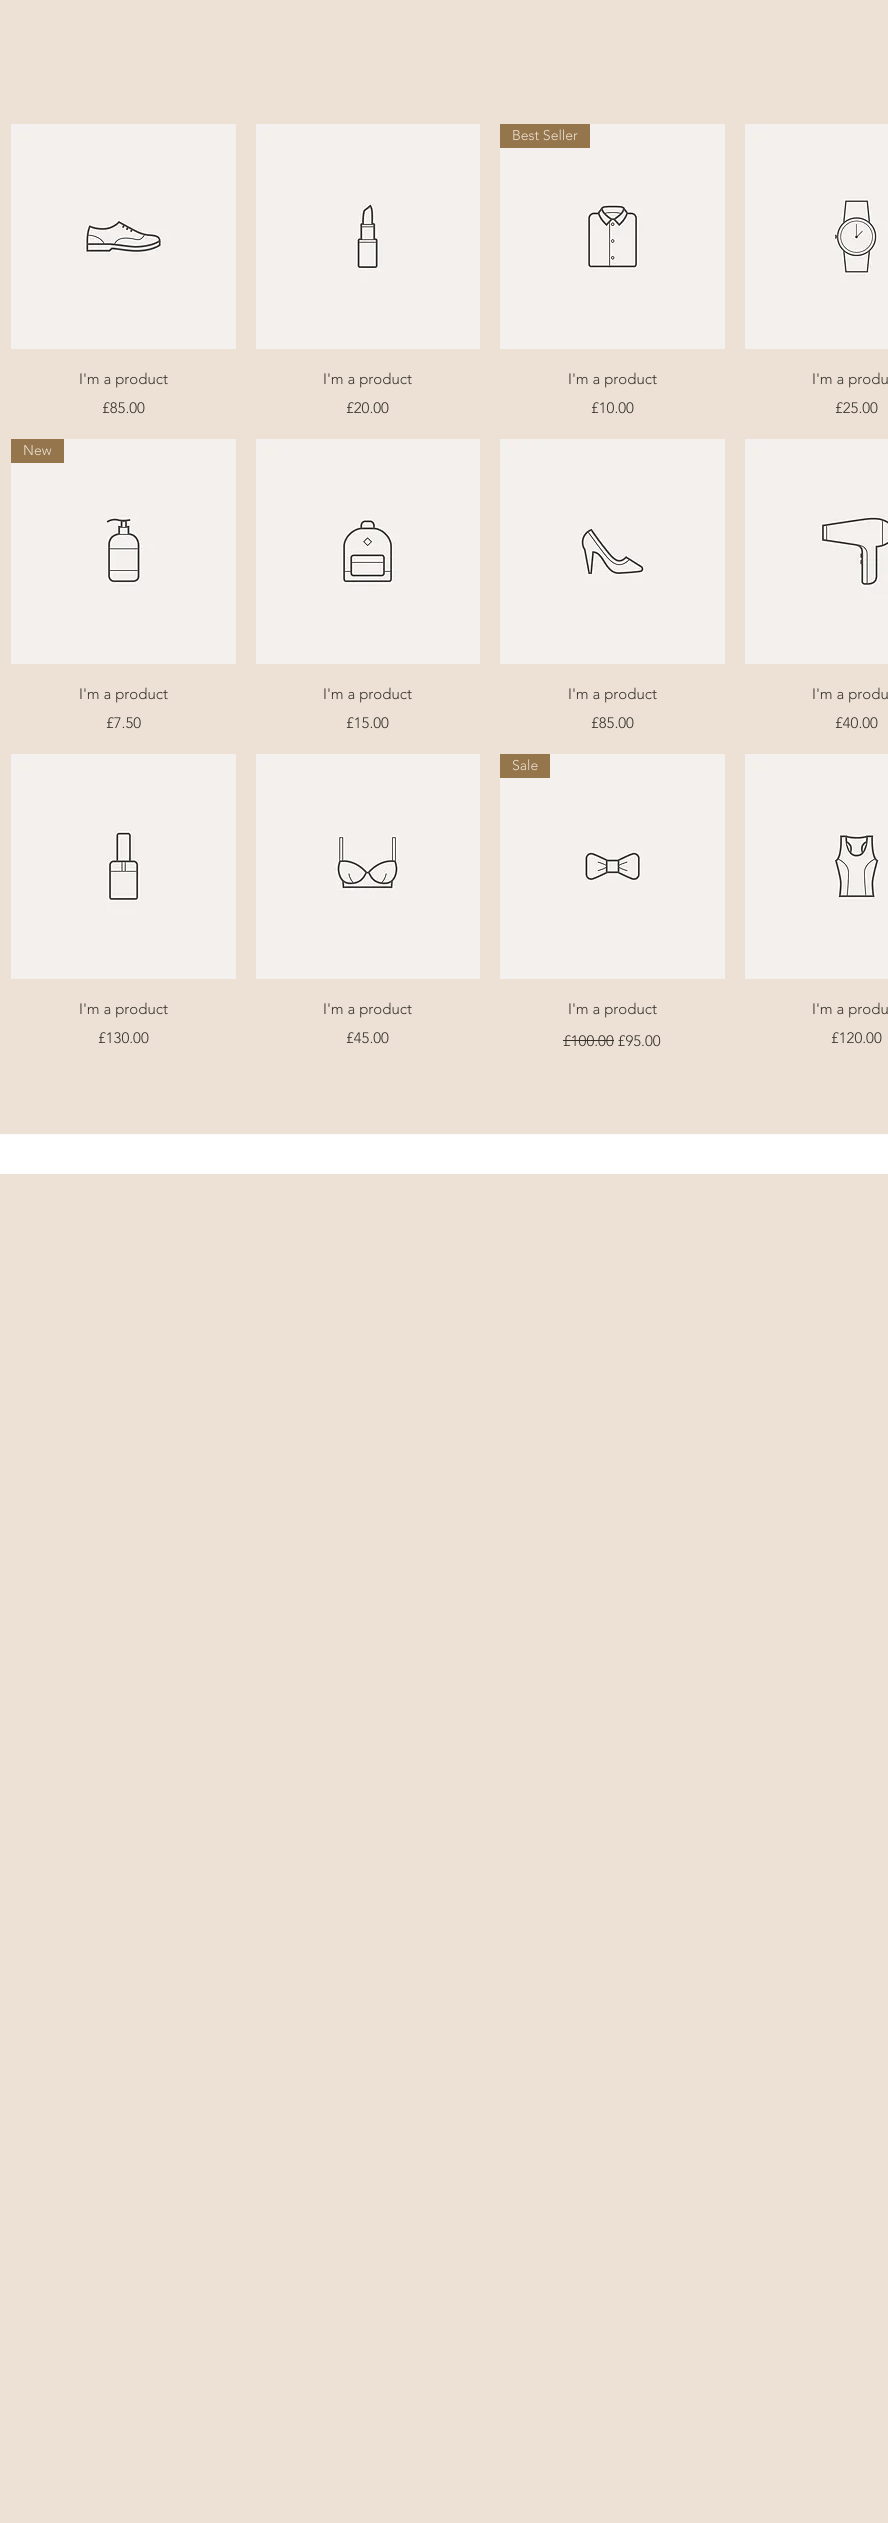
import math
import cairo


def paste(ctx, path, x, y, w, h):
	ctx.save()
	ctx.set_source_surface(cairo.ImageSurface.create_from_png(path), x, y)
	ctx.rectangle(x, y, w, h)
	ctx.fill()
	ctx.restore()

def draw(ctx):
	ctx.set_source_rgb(0.925, 0.882, 0.831)
	ctx.paint()
	paste(ctx, 'media/1.png', 11, 124, 225, 225)
	ctx.select_font_face('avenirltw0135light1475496 Light')
	ctx.set_font_size(15)
	ctx.set_source_rgb(0.212, 0.192, 0.169)
	ctx.move_to(79, 384)
	ctx.show_text('I\'m a product')
	ctx.move_to(102, 413)
	ctx.show_text('£85.00')
	paste(ctx, 'media/2.png', 256, 124, 224, 225)
	ctx.move_to(323, 384)
	ctx.show_text('I\'m a product')
	ctx.move_to(346, 413)
	ctx.show_text('£20.00')
	paste(ctx, 'media/3.png', 500, 124, 225, 225)
	ctx.set_source_rgb(0.584, 0.459, 0.294)
	ctx.rectangle(500, 124, 90, 24)
	ctx.fill()
	ctx.set_font_size(14)
	ctx.set_source_rgb(0.925, 0.882, 0.831)
	ctx.move_to(512, 140)
	ctx.show_text('Best Seller')
	ctx.set_font_size(15)
	ctx.set_source_rgb(0.212, 0.192, 0.169)
	ctx.move_to(568, 384)
	ctx.show_text('I\'m a product')
	ctx.move_to(591, 413)
	ctx.show_text('£10.00')
	paste(ctx, 'media/4.png', 745, 124, 143, 225)
	ctx.move_to(812, 384)
	ctx.show_text('I\'m a produ')
	ctx.move_to(835, 413)
	ctx.show_text('£25.00')
	paste(ctx, 'media/5.png', 11, 439, 225, 225)
	ctx.set_source_rgb(0.584, 0.459, 0.294)
	ctx.rectangle(11, 439, 53, 24)
	ctx.fill()
	ctx.set_font_size(14)
	ctx.set_source_rgb(0.925, 0.882, 0.831)
	ctx.move_to(23, 455)
	ctx.show_text('New')
	ctx.set_font_size(15)
	ctx.set_source_rgb(0.212, 0.192, 0.169)
	ctx.move_to(79, 699)
	ctx.show_text('I\'m a product')
	ctx.move_to(106, 728)
	ctx.show_text('£7.50')
	paste(ctx, 'media/6.png', 256, 439, 224, 225)
	ctx.move_to(323, 699)
	ctx.show_text('I\'m a product')
	ctx.move_to(346, 728)
	ctx.show_text('£15.00')
	paste(ctx, 'media/7.png', 500, 439, 225, 225)
	ctx.move_to(568, 699)
	ctx.show_text('I\'m a product')
	ctx.move_to(591, 728)
	ctx.show_text('£85.00')
	paste(ctx, 'media/8.png', 745, 439, 143, 225)
	ctx.move_to(812, 699)
	ctx.show_text('I\'m a produ')
	ctx.move_to(835, 728)
	ctx.show_text('£40.00')
	paste(ctx, 'media/9.png', 11, 754, 225, 225)
	ctx.move_to(79, 1014)
	ctx.show_text('I\'m a product')
	ctx.move_to(98, 1043)
	ctx.show_text('£130.00')
	paste(ctx, 'media/10.png', 256, 754, 224, 225)
	ctx.move_to(323, 1014)
	ctx.show_text('I\'m a product')
	ctx.move_to(346, 1043)
	ctx.show_text('£45.00')
	paste(ctx, 'media/11.png', 500, 754, 225, 225)
	ctx.set_source_rgb(0.584, 0.459, 0.294)
	ctx.rectangle(500, 754, 50, 24)
	ctx.fill()
	ctx.set_font_size(14)
	ctx.set_source_rgb(0.925, 0.882, 0.831)
	ctx.move_to(512, 770)
	ctx.show_text('Sale')
	ctx.set_font_size(15)
	ctx.set_source_rgb(0.212, 0.192, 0.169)
	ctx.move_to(568, 1014)
	ctx.show_text('I\'m a product')
	ctx.move_to(563, 1046)
	ctx.show_text('£100.00 £95.00')
	ctx.rectangle(563, 1040, 51, 1)
	ctx.fill()
	paste(ctx, 'media/12.png', 745, 754, 143, 225)
	ctx.move_to(812, 1014)
	ctx.show_text('I\'m a produ')
	ctx.move_to(831, 1043)
	ctx.show_text('£120.00')
	ctx.set_source_rgb(1, 1, 1)
	ctx.rectangle(0, 1135, 888, 39)
	ctx.fill()
	ctx.set_source_rgb(0.988, 0.984, 0.976)
	ctx.rectangle(0, 1134, 888, 1)
	ctx.fill()


surface = cairo.ImageSurface(cairo.FORMAT_RGB24, 888, 2523)
ctx = cairo.Context(surface)
options = cairo.FontOptions()
options.set_hint_metrics(cairo.HINT_METRICS_OFF)
options.set_hint_style(cairo.HINT_STYLE_NONE)
ctx.set_font_options(options)
ctx.set_miter_limit(4)
draw(ctx)
surface.write_to_png('image.png')
